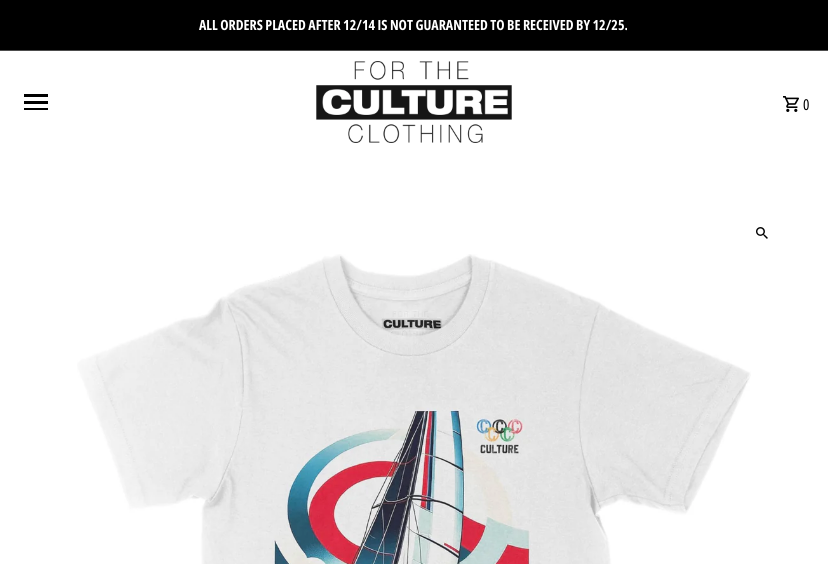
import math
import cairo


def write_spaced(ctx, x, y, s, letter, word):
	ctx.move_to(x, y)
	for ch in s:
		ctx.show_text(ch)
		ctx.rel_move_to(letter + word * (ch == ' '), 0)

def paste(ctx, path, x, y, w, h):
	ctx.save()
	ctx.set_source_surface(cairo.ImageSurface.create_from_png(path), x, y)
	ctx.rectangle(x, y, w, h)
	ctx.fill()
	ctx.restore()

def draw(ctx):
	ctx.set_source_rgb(1, 1, 1)
	ctx.paint()
	ctx.set_source_rgb(0.302, 0.302, 0.302)
	ctx.rectangle(0, 50, 828, 1)
	ctx.fill()
	ctx.set_source_rgb(0, 0, 0)
	ctx.rectangle(0, 0, 828, 50)
	ctx.fill()
	ctx.select_font_face('Open Sans Condensed', cairo.FONT_SLANT_NORMAL, cairo.FONT_WEIGHT_BOLD)
	ctx.set_font_size(14)
	ctx.set_source_rgb(1, 1, 1)
	ctx.move_to(199, 30)
	ctx.show_text('ALL ORDERS PLACED AFTER 12/14 IS NOT GUARANTEED TO BE RECEIVED BY 12/25.')
	ctx.set_source_rgb(0, 0, 0)
	ctx.rectangle(24, 108, 24, 2)
	ctx.rectangle(24, 101, 24, 3)
	ctx.rectangle(24, 94, 24, 3)
	ctx.fill()
	paste(ctx, 'media/1.png', 316, 61, 196, 82)
	paste(ctx, 'media/2.png', 783, 96, 16, 16)
	ctx.select_font_face('Open Sans Condensed')
	ctx.set_font_size(15)
	write_spaced(ctx, 803, 110, '0', 1, 0)
	paste(ctx, 'media/3.png', 756, 227, 12, 12)
	paste(ctx, 'media/4.png', 77, 254, 674, 310)


surface = cairo.ImageSurface(cairo.FORMAT_RGB24, 828, 564)
ctx = cairo.Context(surface)
options = cairo.FontOptions()
options.set_hint_metrics(cairo.HINT_METRICS_OFF)
options.set_hint_style(cairo.HINT_STYLE_NONE)
ctx.set_font_options(options)
ctx.set_miter_limit(4)
draw(ctx)
surface.write_to_png('image.png')
